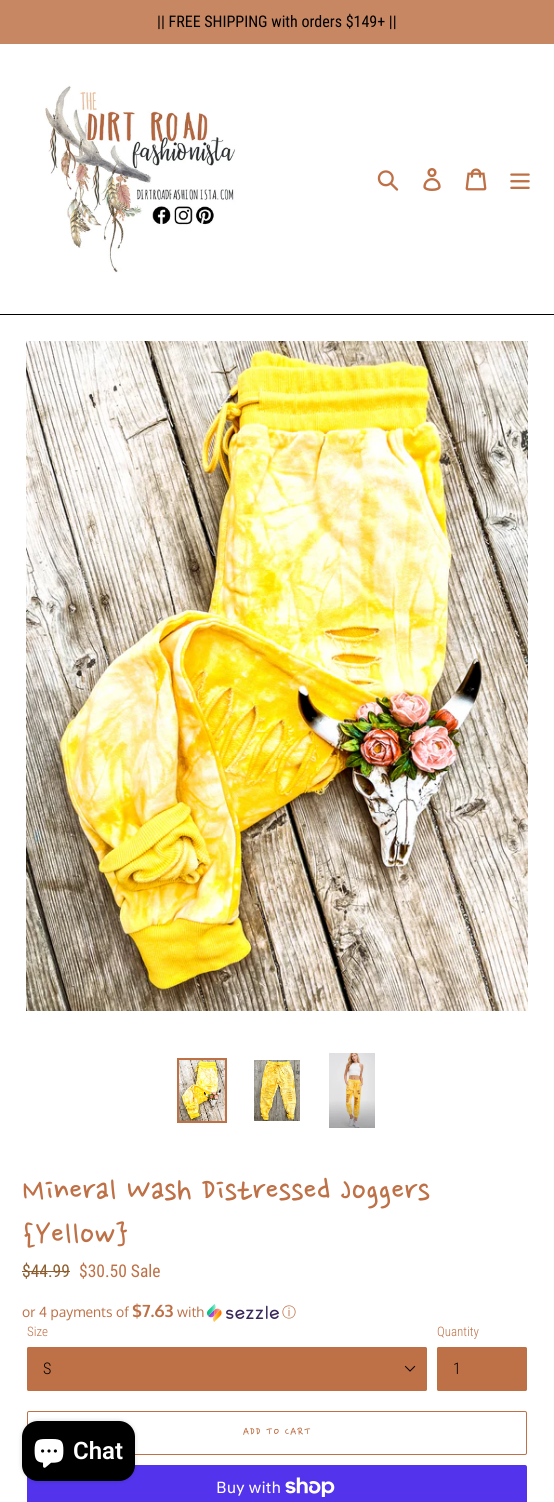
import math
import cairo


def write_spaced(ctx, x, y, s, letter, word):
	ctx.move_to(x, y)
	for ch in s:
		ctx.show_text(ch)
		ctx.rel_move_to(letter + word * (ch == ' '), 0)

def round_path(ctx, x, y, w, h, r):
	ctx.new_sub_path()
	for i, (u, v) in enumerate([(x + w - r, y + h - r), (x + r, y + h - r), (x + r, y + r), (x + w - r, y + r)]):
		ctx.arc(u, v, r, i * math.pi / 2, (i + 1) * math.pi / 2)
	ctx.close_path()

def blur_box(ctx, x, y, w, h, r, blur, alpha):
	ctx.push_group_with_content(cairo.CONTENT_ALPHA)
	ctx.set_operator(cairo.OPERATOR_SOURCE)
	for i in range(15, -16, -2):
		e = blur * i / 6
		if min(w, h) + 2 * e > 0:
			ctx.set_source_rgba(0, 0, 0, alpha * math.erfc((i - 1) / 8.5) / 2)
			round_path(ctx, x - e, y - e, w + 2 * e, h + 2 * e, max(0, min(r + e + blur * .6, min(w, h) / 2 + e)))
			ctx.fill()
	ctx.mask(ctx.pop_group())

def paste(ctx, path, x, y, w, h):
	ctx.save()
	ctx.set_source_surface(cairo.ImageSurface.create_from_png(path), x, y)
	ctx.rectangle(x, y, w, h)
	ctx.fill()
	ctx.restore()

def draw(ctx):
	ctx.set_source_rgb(1, 1, 1)
	ctx.paint()
	ctx.set_source_rgb(0.784, 0.529, 0.388)
	ctx.rectangle(0, 0, 554, 44)
	ctx.fill()
	ctx.select_font_face('Roboto Condensed')
	ctx.set_font_size(16)
	ctx.set_source_rgb(0, 0, 0)
	ctx.move_to(157, 27)
	ctx.show_text('|| FREE SHIPPING with orders $149+ ||')
	ctx.rectangle(0, 314, 554, 1)
	ctx.fill()
	paste(ctx, 'media/1.png', 45, 85, 191, 188)
	paste(ctx, 'media/2.png', 377, 170, 22, 21)
	paste(ctx, 'media/3.png', 423, 168, 18, 23)
	paste(ctx, 'media/4.png', 465, 168, 22, 23)
	paste(ctx, 'media/5.png', 510, 173, 20, 16)
	paste(ctx, 'media/6.png', 26, 341, 502, 670)
	ctx.rectangle(178, 1059, 48, 63)
	ctx.set_source_rgb(0.745, 0.439, 0.275)
	ctx.stroke()
	paste(ctx, 'media/7.png', 179, 1060, 46, 61)
	paste(ctx, 'media/8.png', 254, 1060, 46, 61)
	paste(ctx, 'media/9.png', 329, 1053, 46, 75)
	ctx.select_font_face('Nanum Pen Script')
	ctx.set_font_size(37)
	ctx.move_to(22, 1203)
	ctx.show_text('Mineral Wash Distressed Joggers')
	ctx.move_to(22, 1247)
	ctx.show_text('{Yellow}')
	ctx.select_font_face('Roboto Condensed')
	ctx.set_font_size(17.5)
	ctx.set_source_rgb(0.553, 0.373, 0.188)
	ctx.move_to(22, 1277)
	ctx.show_text('$44.99')
	ctx.rectangle(22, 1271, 48, 1)
	ctx.fill()
	ctx.set_source_rgb(0.745, 0.439, 0.275)
	ctx.move_to(79, 1277)
	ctx.show_text('$30.50 Sale')
	ctx.select_font_face('Oxygen')
	ctx.set_font_size(14)
	ctx.move_to(22, 1317)
	ctx.show_text('or 4 payments of')
	ctx.select_font_face('Oxygen', cairo.FONT_SLANT_NORMAL, cairo.FONT_WEIGHT_BOLD)
	ctx.set_font_size(17)
	ctx.move_to(132, 1317)
	ctx.show_text('$7.63')
	ctx.select_font_face('Oxygen')
	ctx.set_font_size(14)
	ctx.move_to(177, 1317)
	ctx.show_text('with')
	paste(ctx, 'media/10.png', 207, 1304, 72, 18)
	ctx.select_font_face('WenQuanYi Zen Hei Medium')
	ctx.move_to(282, 1317)
	ctx.show_text('ⓘ')
	ctx.select_font_face('Roboto Condensed Light')
	ctx.set_font_size(13)
	ctx.move_to(27, 1336)
	ctx.show_text('Size')
	round_path(ctx, 27, 1347, 400, 44, 2)
	ctx.fill()
	paste(ctx, 'media/11.png', 404, 1365, 12, 7)
	round_path(ctx, 27.5, 1347.5, 399, 43, 1.5)
	ctx.set_source_rgba(0.745, 0.439, 0.275, 0.85)
	ctx.set_line_width(1)
	ctx.stroke()
	ctx.set_font_size(16)
	ctx.set_source_rgb(0, 0, 0)
	ctx.move_to(43, 1374)
	ctx.show_text('S')
	ctx.set_font_size(13)
	ctx.set_source_rgb(0.745, 0.439, 0.275)
	ctx.move_to(437, 1336)
	ctx.show_text('Quantity')
	round_path(ctx, 437, 1347, 90, 44, 2)
	ctx.fill()
	round_path(ctx, 437.5, 1347.5, 89, 43, 1.5)
	ctx.set_source_rgba(0.745, 0.439, 0.275, 0.85)
	ctx.stroke()
	ctx.set_font_size(16)
	ctx.set_source_rgb(0, 0, 0)
	ctx.move_to(453, 1374)
	ctx.show_text('1')
	round_path(ctx, 27.5, 1411.5, 499, 43, 1.5)
	ctx.set_source_rgb(0.745, 0.439, 0.275)
	ctx.stroke()
	ctx.select_font_face('Nanum Pen Script')
	ctx.set_font_size(13)
	write_spaced(ctx, 243, 1436, 'ADD TO CART', 1, 0)
	ctx.set_source_rgb(0.329, 0.2, 0.922)
	round_path(ctx, 27, 1465, 500, 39, 2)
	ctx.fill()
	ctx.select_font_face('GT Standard')
	ctx.set_font_size(16)
	ctx.set_source_rgb(1, 1, 1)
	ctx.move_to(216, 1493)
	ctx.show_text('Buy with')
	paste(ctx, 'media/12.png', 285, 1477, 50, 20)
	ctx.set_source_rgb(0, 0, 0)
	blur_box(ctx, 22, 1421, 113, 60, 16, 2.5, 0.15)
	ctx.set_source_rgb(0, 0, 0)
	round_path(ctx, 22, 1421, 113, 60, 16)
	ctx.fill()
	paste(ctx, 'media/13.png', 34, 1439, 30, 29)
	ctx.select_font_face('Roboto SemiBold')
	ctx.set_font_size(24)
	ctx.set_source_rgb(1, 1, 1)
	ctx.move_to(73, 1459)
	ctx.show_text('Chat')


surface = cairo.ImageSurface(cairo.FORMAT_RGB24, 554, 1502)
ctx = cairo.Context(surface)
options = cairo.FontOptions()
options.set_hint_metrics(cairo.HINT_METRICS_OFF)
options.set_hint_style(cairo.HINT_STYLE_NONE)
ctx.set_font_options(options)
ctx.set_miter_limit(4)
draw(ctx)
surface.write_to_png('image.png')
